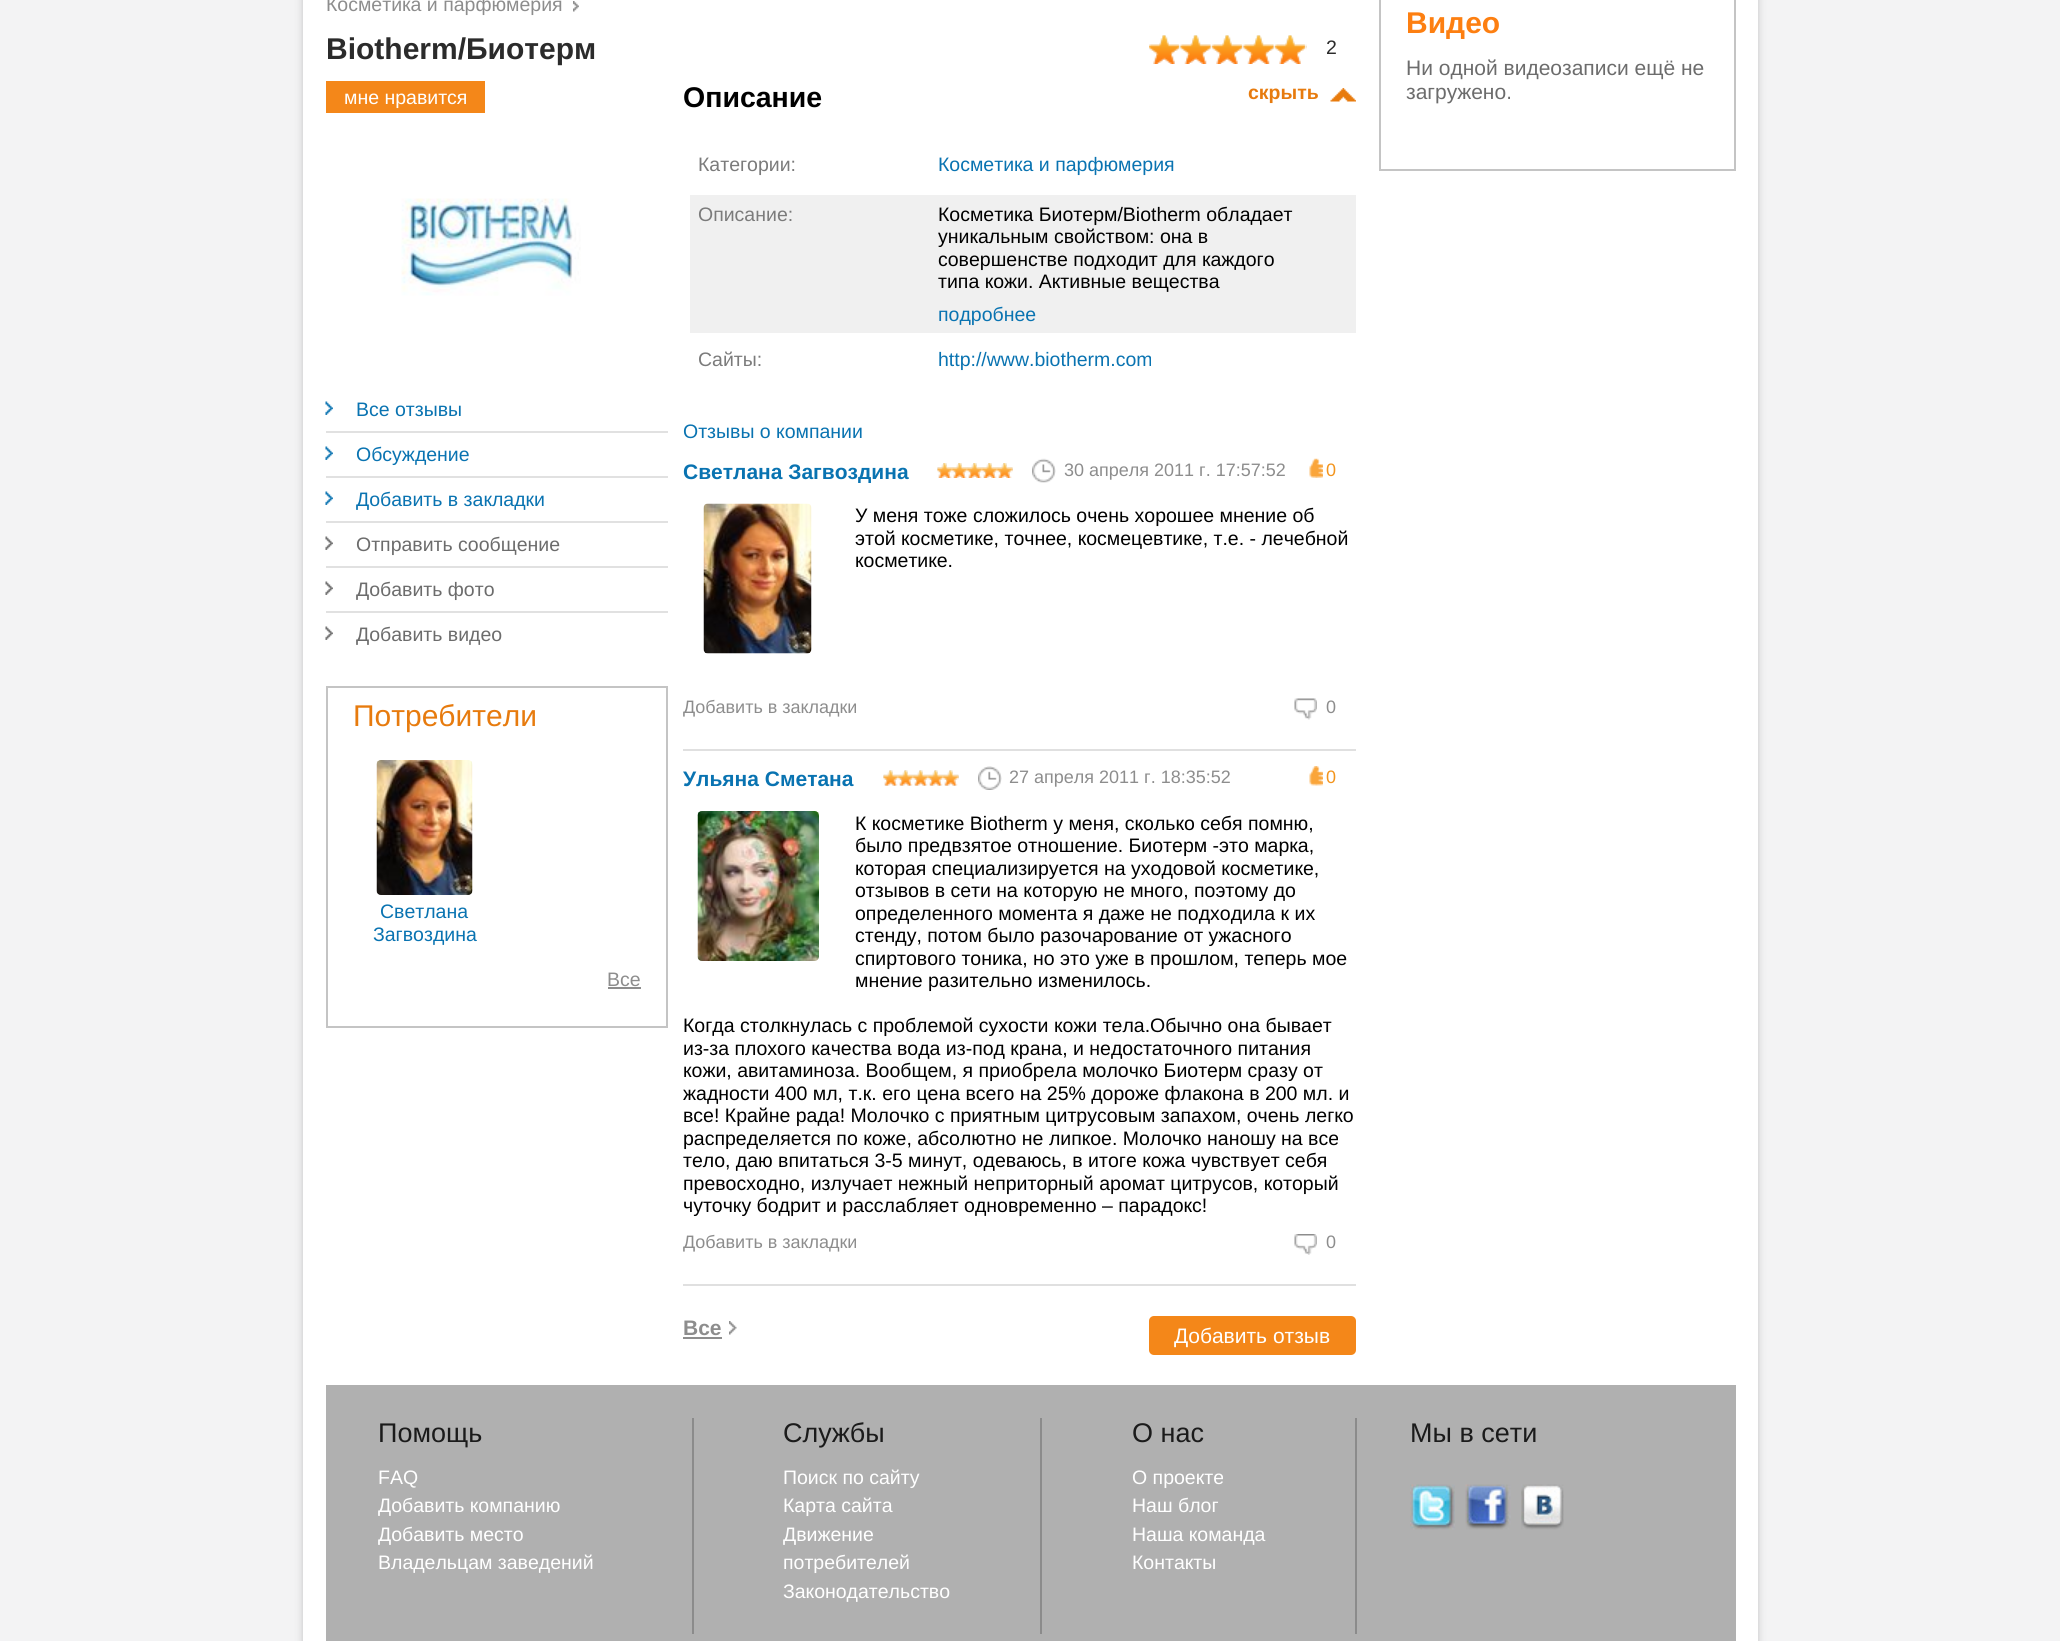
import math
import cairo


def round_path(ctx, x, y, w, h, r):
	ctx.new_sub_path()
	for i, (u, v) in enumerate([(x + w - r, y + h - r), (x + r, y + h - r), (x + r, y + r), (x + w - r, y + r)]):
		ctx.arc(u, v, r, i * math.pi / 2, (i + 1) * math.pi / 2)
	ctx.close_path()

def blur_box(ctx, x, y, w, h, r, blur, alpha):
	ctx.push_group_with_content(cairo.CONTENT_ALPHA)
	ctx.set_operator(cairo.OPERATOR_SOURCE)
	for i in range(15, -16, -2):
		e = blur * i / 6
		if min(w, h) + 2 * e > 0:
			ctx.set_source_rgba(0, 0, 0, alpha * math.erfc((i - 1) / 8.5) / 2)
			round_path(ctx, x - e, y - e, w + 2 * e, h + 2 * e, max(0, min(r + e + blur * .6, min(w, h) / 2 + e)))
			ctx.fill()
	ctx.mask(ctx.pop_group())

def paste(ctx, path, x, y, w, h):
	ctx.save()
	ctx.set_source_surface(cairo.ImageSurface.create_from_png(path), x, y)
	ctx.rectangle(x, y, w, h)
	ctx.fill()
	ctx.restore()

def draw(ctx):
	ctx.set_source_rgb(0.953, 0.953, 0.957)
	ctx.paint()
	ctx.set_source_rgb(0, 0, 0)
	blur_box(ctx, 303, -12, 1455, 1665, 0, 4, 0.2)
	ctx.set_source_rgb(1, 1, 1)
	ctx.rectangle(303, 0, 1455, 1641)
	ctx.fill()
	paste(ctx, 'media/1.png', 573, 1, 6, 11)
	ctx.select_font_face('Liberation Sans')
	ctx.set_font_size(19.5)
	ctx.set_source_rgb(0.553, 0.553, 0.553)
	ctx.move_to(326, 11)
	ctx.show_text('Косметика и парфюмерия')
	ctx.select_font_face('Liberation Sans', cairo.FONT_SLANT_NORMAL, cairo.FONT_WEIGHT_BOLD)
	ctx.set_font_size(30)
	ctx.set_source_rgb(0.169, 0.169, 0.169)
	ctx.move_to(326, 59)
	ctx.show_text('Biotherm/Биотерм')
	paste(ctx, 'media/2.png', 1149, 35, 158, 29)
	paste(ctx, 'media/3.png', 1149, 35, 158, 29)
	ctx.select_font_face('Liberation Sans')
	ctx.set_font_size(19.5)
	ctx.move_to(1326, 54)
	ctx.show_text('2')
	ctx.set_source_rgb(0.957, 0.529, 0.098)
	ctx.rectangle(326, 81, 159, 32)
	ctx.fill()
	ctx.set_source_rgb(1, 1, 1)
	ctx.move_to(344, 104)
	ctx.show_text('мне нравится')
	paste(ctx, 'media/4.png', 401, 198, 180, 98)
	paste(ctx, 'media/5.png', 325, 401, 8, 14)
	ctx.set_source_rgb(0.039, 0.451, 0.694)
	ctx.move_to(356, 416)
	ctx.show_text('Все отзывы')
	paste(ctx, 'media/5.png', 325, 446, 8, 14)
	ctx.set_source_rgb(0.882, 0.882, 0.882)
	ctx.rectangle(326, 431, 342, 2)
	ctx.fill()
	ctx.set_source_rgb(0.039, 0.451, 0.694)
	ctx.move_to(356, 461)
	ctx.show_text('Обсуждение')
	paste(ctx, 'media/5.png', 325, 491, 8, 14)
	ctx.set_source_rgb(0.882, 0.882, 0.882)
	ctx.rectangle(326, 476, 342, 2)
	ctx.fill()
	ctx.set_source_rgb(0.039, 0.451, 0.694)
	ctx.move_to(356, 506)
	ctx.show_text('Добавить в закладки')
	paste(ctx, 'media/6.png', 325, 536, 8, 14)
	ctx.set_source_rgb(0.882, 0.882, 0.882)
	ctx.rectangle(326, 521, 342, 2)
	ctx.fill()
	ctx.set_source_rgb(0.424, 0.424, 0.424)
	ctx.move_to(356, 551)
	ctx.show_text('Отправить сообщение')
	paste(ctx, 'media/6.png', 325, 581, 8, 14)
	ctx.set_source_rgb(0.882, 0.882, 0.882)
	ctx.rectangle(326, 566, 342, 2)
	ctx.fill()
	ctx.set_source_rgb(0.424, 0.424, 0.424)
	ctx.move_to(356, 596)
	ctx.show_text('Добавить фото')
	paste(ctx, 'media/6.png', 325, 626, 8, 14)
	ctx.set_source_rgb(0.882, 0.882, 0.882)
	ctx.rectangle(326, 611, 342, 2)
	ctx.fill()
	ctx.set_source_rgb(0.424, 0.424, 0.424)
	ctx.move_to(356, 641)
	ctx.show_text('Добавить видео')
	ctx.rectangle(327, 687, 340, 340)
	ctx.set_source_rgb(0.769, 0.769, 0.769)
	ctx.stroke()
	ctx.set_font_size(30)
	ctx.set_source_rgb(0.906, 0.482, 0.055)
	ctx.move_to(353, 726)
	ctx.show_text('Потребители')
	paste(ctx, 'media/7.png', 376, 760, 97, 135)
	ctx.set_font_size(19.5)
	ctx.set_source_rgb(0.039, 0.451, 0.694)
	ctx.move_to(380, 918)
	ctx.show_text('Светлана')
	ctx.move_to(373, 941)
	ctx.show_text('Загвоздина')
	ctx.set_source_rgb(0.553, 0.553, 0.553)
	ctx.move_to(607, 986)
	ctx.show_text('Все')
	ctx.rectangle(608, 987, 33, 2)
	ctx.fill()
	ctx.select_font_face('Liberation Sans', cairo.FONT_SLANT_NORMAL, cairo.FONT_WEIGHT_BOLD)
	ctx.set_font_size(28.5)
	ctx.set_source_rgb(0, 0, 0)
	ctx.move_to(683, 107)
	ctx.show_text('Описание')
	paste(ctx, 'media/8.png', 1330, 88, 26, 14)
	ctx.set_font_size(19.5)
	ctx.set_source_rgb(0.906, 0.482, 0.055)
	ctx.move_to(1248, 99)
	ctx.show_text('скрыть')
	ctx.select_font_face('Liberation Sans')
	ctx.set_source_rgb(0.482, 0.482, 0.482)
	ctx.move_to(698, 171)
	ctx.show_text('Категории:')
	ctx.set_source_rgb(0.039, 0.451, 0.694)
	ctx.move_to(938, 171)
	ctx.show_text('Косметика и парфюмерия')
	ctx.set_source_rgb(0.941, 0.941, 0.941)
	ctx.rectangle(690, 195, 666, 138)
	ctx.fill()
	ctx.set_source_rgb(0.482, 0.482, 0.482)
	ctx.move_to(698, 221)
	ctx.show_text('Описание:')
	ctx.set_source_rgb(0, 0, 0)
	for x, y, s in [
		(938, 221, 'Косметика Биотерм/Biotherm обладает'),
		(938, 243, 'уникальным свойством: она в'),
		(938, 266, 'совершенстве подходит для каждого'),
		(938, 288, 'типа кожи. Активные вещества'),
	]:
		ctx.move_to(x, y)
		ctx.show_text(s)
	ctx.set_source_rgb(0.039, 0.451, 0.694)
	ctx.move_to(938, 321)
	ctx.show_text('подробнее')
	ctx.set_source_rgb(0.482, 0.482, 0.482)
	ctx.move_to(698, 366)
	ctx.show_text('Сайты:')
	ctx.set_source_rgb(0.039, 0.451, 0.694)
	ctx.move_to(938, 366)
	ctx.show_text('http://www.biotherm.com')
	ctx.move_to(683, 438)
	ctx.show_text('Отзывы о компании')
	ctx.save()
	ctx.rectangle(683, 459, 673, 24)
	ctx.clip()
	ctx.select_font_face('Liberation Sans', cairo.FONT_SLANT_NORMAL, cairo.FONT_WEIGHT_BOLD)
	ctx.set_font_size(21)
	ctx.move_to(683, 479)
	ctx.show_text('Светлана Загвоздина')
	ctx.restore()
	paste(ctx, 'media/9.png', 937, 463, 76, 15)
	paste(ctx, 'media/10.png', 937, 463, 76, 15)
	paste(ctx, 'media/11.png', 1032, 458, 24, 25)
	ctx.set_font_size(18)
	ctx.set_source_rgb(0.553, 0.553, 0.553)
	ctx.move_to(1064, 476)
	ctx.show_text('30 апреля 2011 г. 17:57:52')
	paste(ctx, 'media/12.png', 1309, 458, 14, 20)
	ctx.set_source_rgb(0.953, 0.58, 0.11)
	ctx.move_to(1326, 476)
	ctx.show_text('0')
	paste(ctx, 'media/13.png', 703, 503, 109, 151)
	ctx.set_font_size(19.5)
	ctx.set_source_rgb(0, 0, 0)
	for x, y, s in [
		(855, 522, 'У меня тоже сложилось очень хорошее мнение об'),
		(855, 545, 'этой косметике, точнее, космецевтике, т.е. - лечебной'),
		(855, 567, 'косметике.'),
	]:
		ctx.move_to(x, y)
		ctx.show_text(s)
	ctx.set_source_rgb(0.878, 0.878, 0.878)
	ctx.rectangle(683, 749, 673, 2)
	ctx.fill()
	ctx.set_font_size(18)
	ctx.set_source_rgb(0.553, 0.553, 0.553)
	ctx.move_to(683, 713)
	ctx.show_text('Добавить в закладки')
	paste(ctx, 'media/14.png', 1294, 698, 23, 22)
	ctx.move_to(1326, 713)
	ctx.show_text('0')
	ctx.select_font_face('Liberation Sans', cairo.FONT_SLANT_NORMAL, cairo.FONT_WEIGHT_BOLD)
	ctx.set_font_size(21)
	ctx.set_source_rgb(0.039, 0.451, 0.694)
	ctx.move_to(683, 786)
	ctx.show_text('Ульяна Сметана')
	paste(ctx, 'media/15.png', 883, 770, 76, 16)
	paste(ctx, 'media/16.png', 883, 770, 76, 16)
	paste(ctx, 'media/17.png', 978, 766, 24, 24)
	ctx.select_font_face('Liberation Sans')
	ctx.set_font_size(18)
	ctx.set_source_rgb(0.553, 0.553, 0.553)
	ctx.move_to(1009, 783)
	ctx.show_text('27 апреля 2011 г. 18:35:52')
	paste(ctx, 'media/18.png', 1309, 766, 14, 20)
	ctx.set_source_rgb(0.953, 0.58, 0.11)
	ctx.move_to(1326, 783)
	ctx.show_text('0')
	paste(ctx, 'media/19.png', 697, 811, 122, 150)
	ctx.set_font_size(19.5)
	ctx.set_source_rgb(0, 0, 0)
	for x, y, s in [
		(855, 830, 'К косметике Biotherm у меня, сколько себя помню,'),
		(855, 852, 'было предвзятое отношение. Биотерм -это марка,'),
		(855, 875, 'которая специализируется на уходовой косметике,'),
		(855, 897, 'отзывов в сети на которую не много, поэтому до'),
		(855, 920, 'определенного момента я даже не подходила к их'),
		(855, 942, 'стенду, потом было разочарование от ужасного'),
		(855, 965, 'спиртового тоника, но это уже в прошлом, теперь мое'),
		(855, 987, 'мнение разительно изменилось.'),
		(683, 1032, 'Когда столкнулась с проблемой сухости кожи тела.Обычно она бывает'),
		(683, 1055, 'из-за плохого качества вода из-под крана, и недостаточного питания'),
		(683, 1077, 'кожи, авитаминоза. Вообщем, я приобрела молочко Биотерм сразу от'),
		(683, 1100, 'жадности 400 мл, т.к. его цена всего на 25% дороже флакона в 200 мл. и'),
		(683, 1122, 'все! Крайне рада! Молочко с приятным цитрусовым запахом, очень легко'),
		(683, 1145, 'распределяется по коже, абсолютно не липкое. Молочко наношу на все'),
		(683, 1167, 'тело, даю впитаться 3-5 минут, одеваюсь, в итоге кожа чувствует себя'),
		(683, 1190, 'превосходно, излучает нежный неприторный аромат цитрусов, который'),
		(683, 1212, 'чуточку бодрит и расслабляет одновременно – парадокс!'),
	]:
		ctx.move_to(x, y)
		ctx.show_text(s)
	ctx.set_source_rgb(0.878, 0.878, 0.878)
	ctx.rectangle(683, 1284, 673, 2)
	ctx.fill()
	ctx.set_font_size(18)
	ctx.set_source_rgb(0.553, 0.553, 0.553)
	ctx.move_to(683, 1248)
	ctx.show_text('Добавить в закладки')
	paste(ctx, 'media/20.png', 1294, 1234, 23, 21)
	ctx.move_to(1326, 1248)
	ctx.show_text('0')
	ctx.select_font_face('Liberation Sans', cairo.FONT_SLANT_NORMAL, cairo.FONT_WEIGHT_BOLD)
	ctx.set_font_size(21)
	ctx.move_to(683, 1335)
	ctx.show_text('Все')
	ctx.rectangle(683, 1337, 39, 2)
	ctx.fill()
	paste(ctx, 'media/21.png', 729, 1321, 8, 14)
	ctx.set_source_rgb(0.957, 0.529, 0.098)
	round_path(ctx, 1149, 1316, 207, 39, 5)
	ctx.fill()
	ctx.select_font_face('Liberation Sans')
	ctx.set_source_rgb(1, 1, 1)
	ctx.move_to(1174, 1343)
	ctx.show_text('Добавить отзыв')
	ctx.rectangle(1380, -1, 355, 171)
	ctx.set_source_rgb(0.769, 0.769, 0.769)
	ctx.stroke()
	ctx.select_font_face('Liberation Sans', cairo.FONT_SLANT_NORMAL, cairo.FONT_WEIGHT_BOLD)
	ctx.set_font_size(30)
	ctx.set_source_rgb(0.992, 0.498, 0.067)
	ctx.move_to(1406, 33)
	ctx.show_text('Видео')
	ctx.select_font_face('Liberation Sans')
	ctx.set_font_size(21)
	ctx.set_source_rgb(0.424, 0.424, 0.424)
	ctx.move_to(1406, 75)
	ctx.show_text('Ни одной видеозаписи ещё не')
	ctx.move_to(1406, 99)
	ctx.show_text('загружено.')
	ctx.set_source_rgb(0.69, 0.69, 0.69)
	ctx.rectangle(326, 1385, 1410, 256)
	ctx.fill()
	ctx.set_font_size(27)
	ctx.set_source_rgb(0.106, 0.106, 0.106)
	ctx.move_to(378, 1442)
	ctx.show_text('Помощь')
	ctx.set_font_size(19.5)
	ctx.set_source_rgb(1, 1, 1)
	for x, y, s in [
		(378, 1484, 'FAQ'),
		(378, 1512, 'Добавить компанию'),
		(378, 1541, 'Добавить место'),
		(378, 1569, 'Владельцам заведений'),
	]:
		ctx.move_to(x, y)
		ctx.show_text(s)
	ctx.set_source_rgb(0.545, 0.545, 0.545)
	ctx.rectangle(692, 1418, 2, 216)
	ctx.fill()
	ctx.set_font_size(27)
	ctx.set_source_rgb(0.106, 0.106, 0.106)
	ctx.move_to(783, 1442)
	ctx.show_text('Службы')
	ctx.set_font_size(19.5)
	ctx.set_source_rgb(1, 1, 1)
	for x, y, s in [
		(783, 1484, 'Поиск по сайту'),
		(783, 1512, 'Карта сайта'),
		(783, 1541, 'Движение'),
		(783, 1569, 'потребителей'),
		(783, 1598, 'Законодательство'),
	]:
		ctx.move_to(x, y)
		ctx.show_text(s)
	ctx.set_source_rgb(0.545, 0.545, 0.545)
	ctx.rectangle(1040, 1418, 2, 216)
	ctx.fill()
	ctx.set_font_size(27)
	ctx.set_source_rgb(0.106, 0.106, 0.106)
	ctx.move_to(1132, 1442)
	ctx.show_text('О нас')
	ctx.set_font_size(19.5)
	ctx.set_source_rgb(1, 1, 1)
	for x, y, s in [
		(1132, 1484, 'О проекте'),
		(1132, 1512, 'Наш блог'),
		(1132, 1541, 'Наша команда'),
		(1132, 1569, 'Контакты'),
	]:
		ctx.move_to(x, y)
		ctx.show_text(s)
	ctx.set_source_rgb(0.545, 0.545, 0.545)
	ctx.rectangle(1355, 1418, 2, 216)
	ctx.fill()
	ctx.set_font_size(27)
	ctx.set_source_rgb(0.106, 0.106, 0.106)
	ctx.move_to(1410, 1442)
	ctx.show_text('Мы в сети')
	paste(ctx, 'media/22.png', 1410, 1484, 45, 46)
	paste(ctx, 'media/23.png', 1465, 1484, 46, 46)
	paste(ctx, 'media/24.png', 1521, 1484, 43, 46)


surface = cairo.ImageSurface(cairo.FORMAT_RGB24, 2060, 1641)
ctx = cairo.Context(surface)
options = cairo.FontOptions()
options.set_hint_metrics(cairo.HINT_METRICS_OFF)
options.set_hint_style(cairo.HINT_STYLE_NONE)
ctx.set_font_options(options)
ctx.set_miter_limit(4)
draw(ctx)
surface.write_to_png('image.png')
